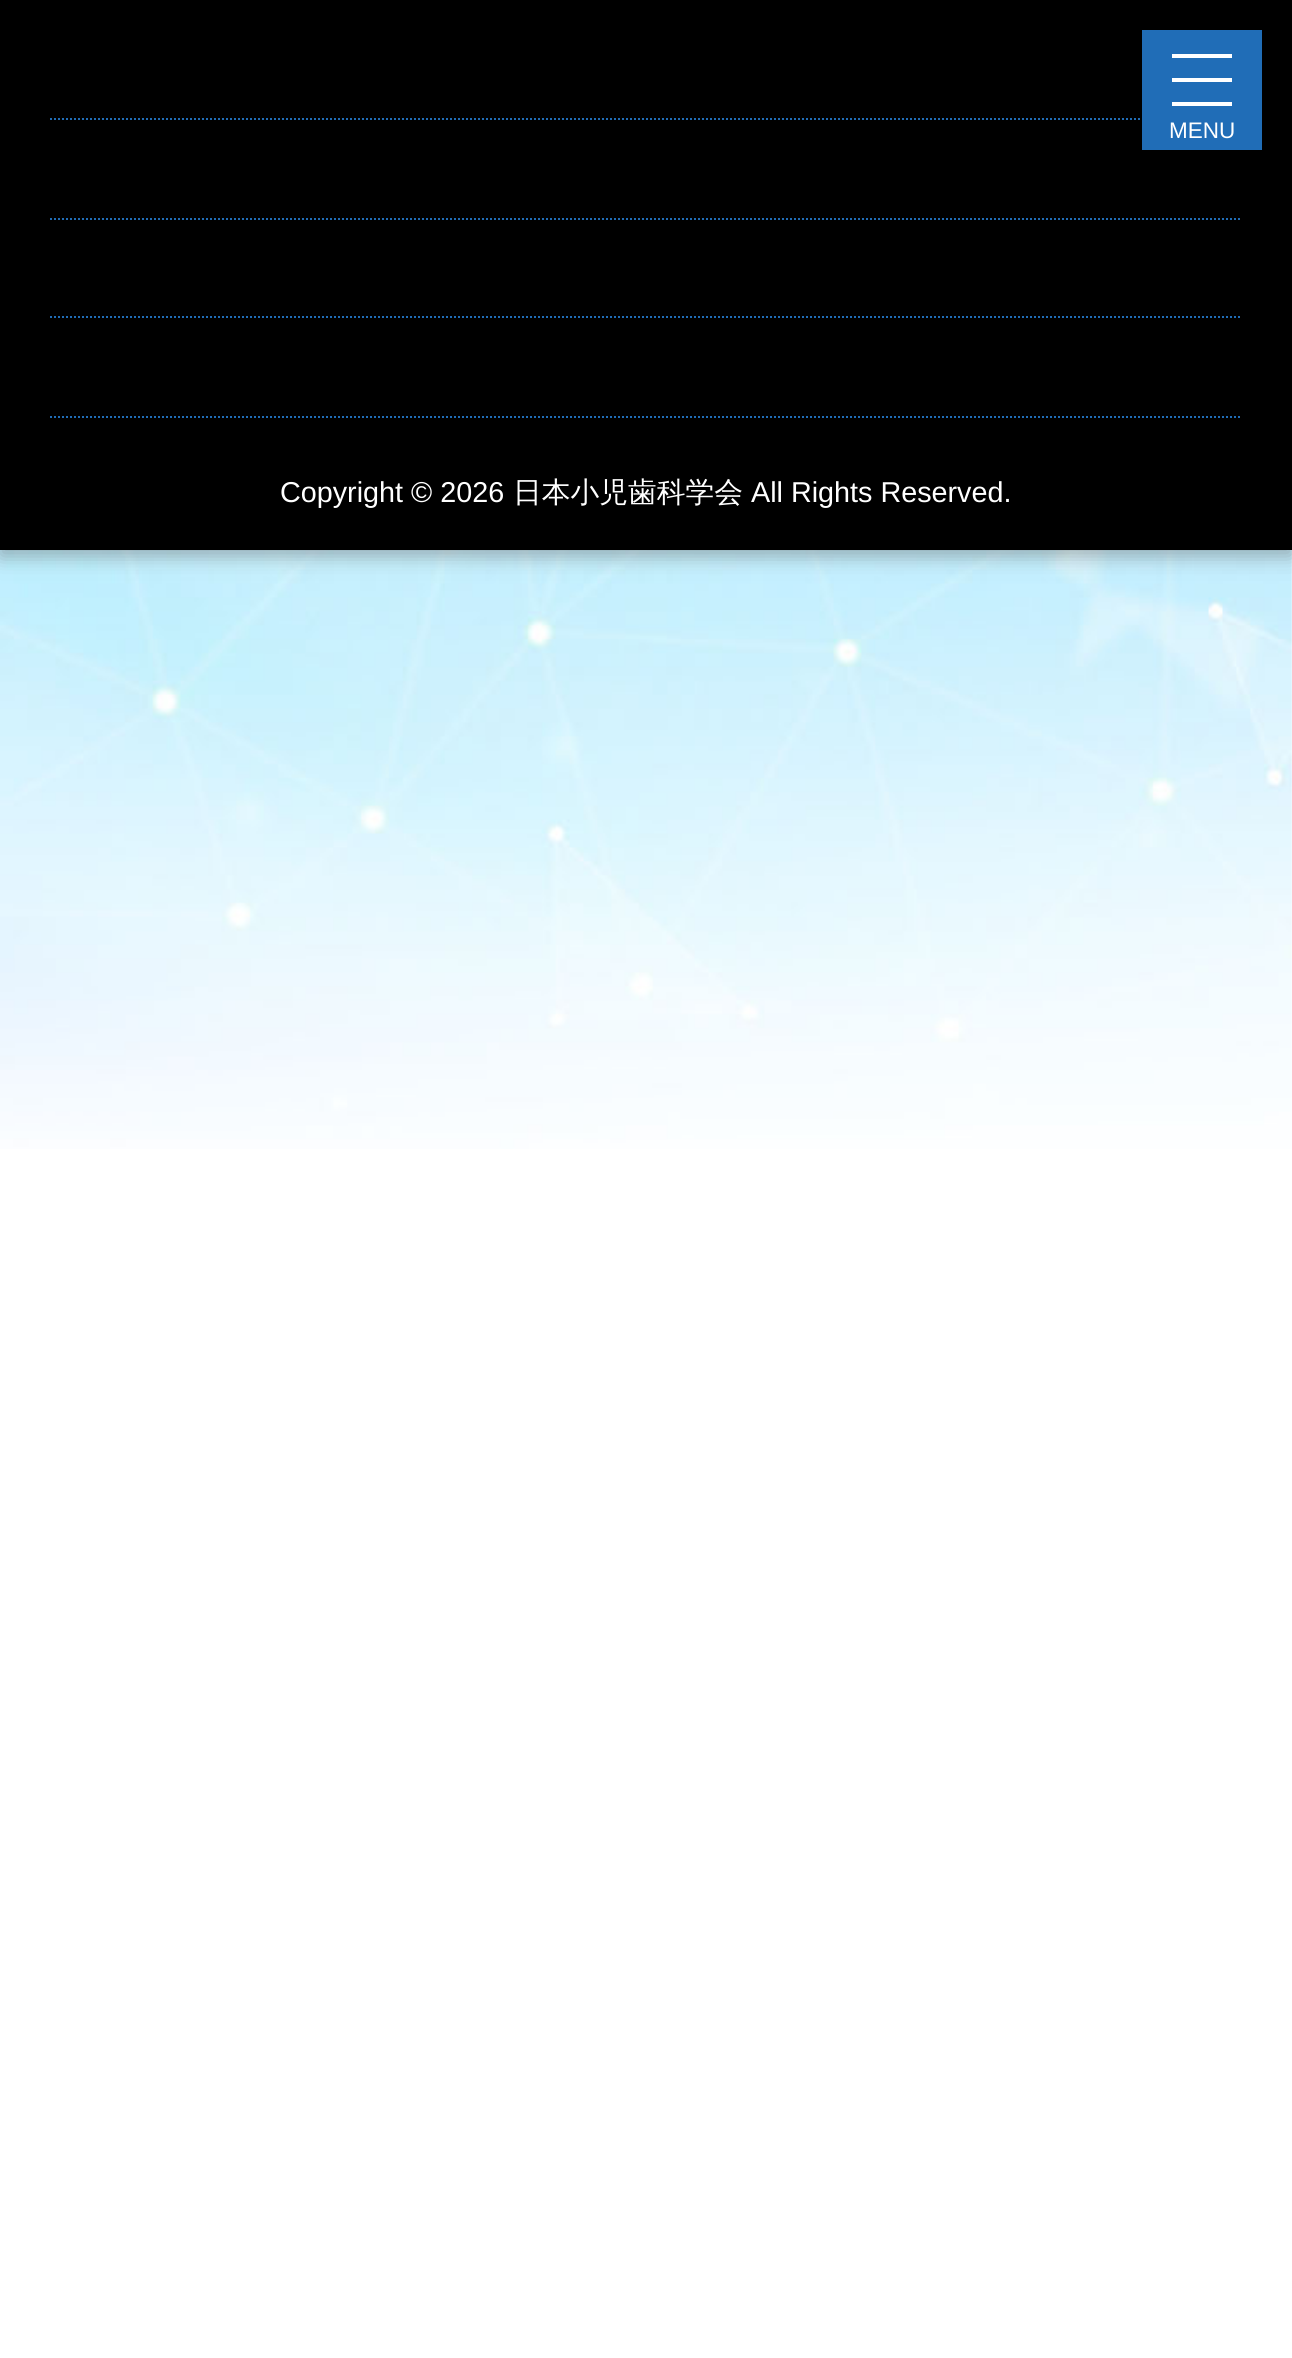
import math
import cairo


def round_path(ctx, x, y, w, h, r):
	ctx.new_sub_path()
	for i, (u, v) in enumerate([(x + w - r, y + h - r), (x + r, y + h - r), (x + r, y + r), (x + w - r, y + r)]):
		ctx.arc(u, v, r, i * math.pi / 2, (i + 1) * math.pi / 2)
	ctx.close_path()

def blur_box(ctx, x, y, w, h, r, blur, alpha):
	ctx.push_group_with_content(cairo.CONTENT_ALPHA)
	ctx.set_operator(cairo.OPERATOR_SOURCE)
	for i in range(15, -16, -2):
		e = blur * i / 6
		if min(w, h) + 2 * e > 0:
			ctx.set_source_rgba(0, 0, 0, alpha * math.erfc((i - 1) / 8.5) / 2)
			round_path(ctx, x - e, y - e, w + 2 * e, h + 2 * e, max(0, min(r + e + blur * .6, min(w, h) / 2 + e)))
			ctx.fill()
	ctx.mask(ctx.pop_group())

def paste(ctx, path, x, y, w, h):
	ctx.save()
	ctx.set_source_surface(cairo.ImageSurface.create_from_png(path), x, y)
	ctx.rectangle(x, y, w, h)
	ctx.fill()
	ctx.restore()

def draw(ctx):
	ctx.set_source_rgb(1, 1, 1)
	ctx.paint()
	paste(ctx, 'media/1.png', 0, 550, 1292, 599)
	ctx.set_source_rgb(0.392, 0.392, 0.392)
	blur_box(ctx, 0, 6, 1292, 550, 0, 10, 0.5)
	ctx.set_source_rgb(0, 0, 0)
	ctx.rectangle(0, 0, 1292, 550)
	ctx.fill()
	ctx.new_path()
	ctx.move_to(50, 119)
	ctx.line_to(1242, 119)
	ctx.set_source_rgb(0.125, 0.427, 0.718)
	ctx.set_dash([2, 2])
	ctx.stroke()
	ctx.new_path()
	ctx.move_to(50, 219)
	ctx.line_to(1242, 219)
	ctx.stroke()
	ctx.new_path()
	ctx.move_to(50, 317)
	ctx.line_to(1242, 317)
	ctx.stroke()
	ctx.new_path()
	ctx.move_to(50, 417)
	ctx.line_to(1242, 417)
	ctx.stroke()
	ctx.rectangle(1142, 30, 120, 120)
	ctx.fill()
	ctx.set_source_rgb(1, 1, 1)
	ctx.rectangle(1172, 54, 60, 4)
	ctx.rectangle(1172, 78, 60, 4)
	ctx.rectangle(1172, 102, 60, 4)
	ctx.fill()
	ctx.select_font_face('Liberation Sans')
	ctx.set_font_size(22.5)
	ctx.move_to(1169, 138)
	ctx.show_text('MENU')
	ctx.set_font_size(28.75)
	ctx.move_to(280, 502)
	ctx.show_text('Copyright © 2026')
	ctx.select_font_face('WenQuanYi Zen Hei Medium')
	ctx.move_to(513, 502)
	ctx.show_text('日本小児歯科学会')
	ctx.select_font_face('Liberation Sans')
	ctx.move_to(751, 502)
	ctx.show_text('All Rights Reserved.')


surface = cairo.ImageSurface(cairo.FORMAT_RGB24, 1292, 2358)
ctx = cairo.Context(surface)
options = cairo.FontOptions()
options.set_hint_metrics(cairo.HINT_METRICS_OFF)
options.set_hint_style(cairo.HINT_STYLE_NONE)
ctx.set_font_options(options)
ctx.set_miter_limit(4)
draw(ctx)
surface.write_to_png('image.png')
